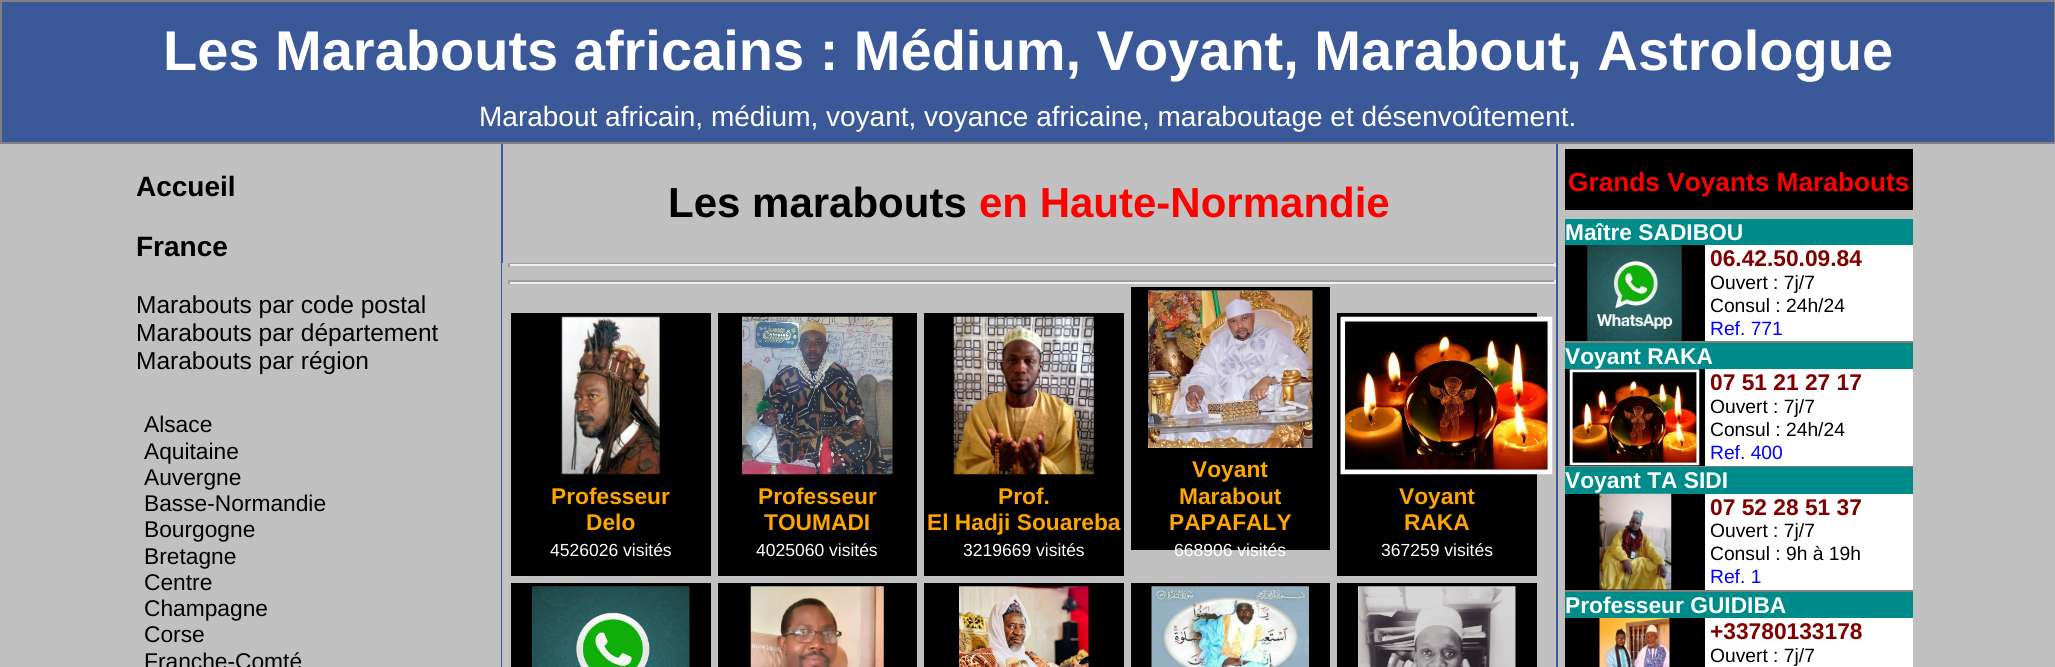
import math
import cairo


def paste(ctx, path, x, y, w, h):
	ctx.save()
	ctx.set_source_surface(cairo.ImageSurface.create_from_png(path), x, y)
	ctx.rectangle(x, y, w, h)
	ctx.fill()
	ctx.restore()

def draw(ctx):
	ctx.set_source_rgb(0.753, 0.753, 0.753)
	ctx.paint()
	ctx.set_source_rgb(0.231, 0.349, 0.596)
	ctx.rectangle(1, 1, 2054, 142)
	ctx.fill_preserve()
	ctx.set_source_rgb(0.502, 0.502, 0.502)
	ctx.stroke()
	ctx.select_font_face('Liberation Sans', cairo.FONT_SLANT_NORMAL, cairo.FONT_WEIGHT_BOLD)
	ctx.set_font_size(56)
	ctx.set_source_rgb(1, 1, 1)
	ctx.move_to(163, 70)
	ctx.show_text('Les Marabouts africains : Médium, Voyant, Marabout, Astrologue')
	ctx.select_font_face('Liberation Sans')
	ctx.set_font_size(28)
	ctx.move_to(479, 126)
	ctx.show_text('Marabout africain, médium, voyant, voyance africaine, maraboutage et désenvoûtement.')
	ctx.select_font_face('Liberation Sans', cairo.FONT_SLANT_NORMAL, cairo.FONT_WEIGHT_BOLD)
	ctx.set_source_rgb(0, 0, 0)
	ctx.move_to(136, 196)
	ctx.show_text('Accueil')
	ctx.move_to(136, 256)
	ctx.show_text('France')
	ctx.select_font_face('Liberation Sans')
	ctx.set_font_size(24.5)
	for x, y, s in [
		(136, 313, 'Marabouts par code postal'),
		(136, 341, 'Marabouts par département'),
		(136, 369, 'Marabouts par région'),
	]:
		ctx.move_to(x, y)
		ctx.show_text(s)
	ctx.set_font_size(22.75)
	for x, y, s in [
		(144, 432, 'Alsace'),
		(144, 459, 'Aquitaine'),
		(144, 485, 'Auvergne'),
		(144, 511, 'Basse-Normandie'),
		(144, 537, 'Bourgogne'),
		(144, 564, 'Bretagne'),
		(144, 590, 'Centre'),
		(144, 616, 'Champagne'),
		(144, 642, 'Corse'),
		(144, 669, 'Franche-Comté'),
	]:
		ctx.move_to(x, y)
		ctx.show_text(s)
	ctx.set_source_rgb(0.231, 0.349, 0.596)
	ctx.rectangle(1556, 144, 2, 523)
	ctx.fill()
	ctx.rectangle(501, 144, 2, 523)
	ctx.fill()
	ctx.select_font_face('Liberation Sans', cairo.FONT_SLANT_NORMAL, cairo.FONT_WEIGHT_BOLD)
	ctx.set_font_size(42)
	ctx.set_source_rgb(0, 0, 0)
	ctx.move_to(668, 217)
	ctx.show_text('Les marabouts')
	ctx.set_source_rgb(1, 0, 0)
	ctx.move_to(979, 217)
	ctx.show_text('en Haute-Normandie')
	ctx.set_source_rgb(0.753, 0.753, 0.753)
	ctx.rectangle(502, 263, 1, 404)
	ctx.fill()
	ctx.set_source_rgb(0.624, 0.624, 0.624)
	ctx.rectangle(508, 263, 1048, 1)
	ctx.fill()
	ctx.set_source_rgb(0.933, 0.933, 0.933)
	ctx.rectangle(1554, 263, 2, 4)
	ctx.rectangle(508, 264, 1048, 2)
	ctx.fill()
	ctx.set_source_rgb(0.624, 0.624, 0.624)
	ctx.rectangle(508, 263, 2, 4)
	ctx.rectangle(508, 280, 1048, 2)
	ctx.fill()
	ctx.set_source_rgb(0.933, 0.933, 0.933)
	ctx.rectangle(1554, 280, 2, 4)
	ctx.rectangle(508, 282, 1048, 2)
	ctx.fill()
	ctx.set_source_rgb(0.624, 0.624, 0.624)
	ctx.rectangle(508, 280, 2, 4)
	ctx.fill()
	ctx.set_source_rgb(0, 0, 0)
	ctx.rectangle(511, 313, 200, 263)
	ctx.fill()
	paste(ctx, 'media/1.png', 561, 316, 99, 159)
	ctx.set_font_size(22.75)
	ctx.set_source_rgb(1, 0.647, 0)
	ctx.move_to(551, 504)
	ctx.show_text('Professeur')
	ctx.move_to(586, 530)
	ctx.show_text('Delo')
	ctx.select_font_face('Liberation Sans')
	ctx.set_font_size(17.5)
	ctx.set_source_rgb(1, 1, 1)
	ctx.move_to(550, 556)
	ctx.show_text('4526026 visités')
	ctx.set_source_rgb(0, 0, 0)
	ctx.rectangle(718, 313, 199, 263)
	ctx.fill()
	paste(ctx, 'media/2.png', 742, 316, 151, 159)
	ctx.select_font_face('Liberation Sans', cairo.FONT_SLANT_NORMAL, cairo.FONT_WEIGHT_BOLD)
	ctx.set_font_size(22.75)
	ctx.set_source_rgb(1, 0.647, 0)
	ctx.move_to(758, 504)
	ctx.show_text('Professeur')
	ctx.move_to(764, 530)
	ctx.show_text('TOUMADI')
	ctx.select_font_face('Liberation Sans')
	ctx.set_font_size(17.5)
	ctx.set_source_rgb(1, 1, 1)
	ctx.move_to(756, 556)
	ctx.show_text('4025060 visités')
	ctx.set_source_rgb(0, 0, 0)
	ctx.rectangle(924, 313, 200, 263)
	ctx.fill()
	paste(ctx, 'media/3.png', 953, 316, 141, 159)
	ctx.select_font_face('Liberation Sans', cairo.FONT_SLANT_NORMAL, cairo.FONT_WEIGHT_BOLD)
	ctx.set_font_size(22.75)
	ctx.set_source_rgb(1, 0.647, 0)
	ctx.move_to(998, 504)
	ctx.show_text('Prof.')
	ctx.move_to(927, 530)
	ctx.show_text('El Hadji Souareba')
	ctx.select_font_face('Liberation Sans')
	ctx.set_font_size(17.5)
	ctx.set_source_rgb(1, 1, 1)
	ctx.move_to(963, 556)
	ctx.show_text('3219669 visités')
	ctx.set_source_rgb(0, 0, 0)
	ctx.rectangle(1131, 287, 199, 263)
	ctx.fill()
	paste(ctx, 'media/4.png', 1148, 290, 165, 158)
	ctx.select_font_face('Liberation Sans', cairo.FONT_SLANT_NORMAL, cairo.FONT_WEIGHT_BOLD)
	ctx.set_font_size(22.75)
	ctx.set_source_rgb(1, 0.647, 0)
	for x, y, s in [
		(1192, 477, 'Voyant'),
		(1179, 504, 'Marabout'),
		(1169, 530, 'PAPAFALY'),
	]:
		ctx.move_to(x, y)
		ctx.show_text(s)
	ctx.select_font_face('Liberation Sans')
	ctx.set_font_size(17.5)
	ctx.set_source_rgb(1, 1, 1)
	ctx.move_to(1174, 556)
	ctx.show_text('668906 visités')
	ctx.set_source_rgb(0, 0, 0)
	ctx.rectangle(1337, 313, 200, 263)
	ctx.fill()
	paste(ctx, 'media/5.png', 1340, 316, 213, 159)
	ctx.select_font_face('Liberation Sans', cairo.FONT_SLANT_NORMAL, cairo.FONT_WEIGHT_BOLD)
	ctx.set_font_size(22.75)
	ctx.set_source_rgb(1, 0.647, 0)
	ctx.move_to(1399, 504)
	ctx.show_text('Voyant')
	ctx.move_to(1404, 530)
	ctx.show_text('RAKA')
	ctx.select_font_face('Liberation Sans')
	ctx.set_font_size(17.5)
	ctx.set_source_rgb(1, 1, 1)
	ctx.move_to(1381, 556)
	ctx.show_text('367259 visités')
	ctx.set_source_rgb(0, 0, 0)
	ctx.rectangle(511, 583, 200, 84)
	ctx.fill()
	paste(ctx, 'media/6.png', 532, 586, 158, 81)
	ctx.rectangle(718, 583, 199, 84)
	ctx.fill()
	paste(ctx, 'media/7.png', 750, 586, 134, 81)
	ctx.rectangle(924, 583, 200, 84)
	ctx.fill()
	paste(ctx, 'media/8.png', 959, 586, 130, 81)
	ctx.rectangle(1131, 583, 199, 84)
	ctx.fill()
	paste(ctx, 'media/9.png', 1151, 586, 158, 81)
	ctx.rectangle(1337, 583, 200, 84)
	ctx.fill()
	paste(ctx, 'media/10.png', 1358, 586, 158, 81)
	ctx.rectangle(1565, 149, 348, 61)
	ctx.fill()
	ctx.select_font_face('Liberation Sans', cairo.FONT_SLANT_NORMAL, cairo.FONT_WEIGHT_BOLD)
	ctx.set_font_size(26.25)
	ctx.set_source_rgb(1, 0, 0)
	ctx.move_to(1568, 191)
	ctx.show_text('Grands Voyants Marabouts')
	ctx.set_source_rgb(1, 1, 1)
	ctx.rectangle(1705, 245, 208, 96)
	ctx.fill()
	ctx.set_source_rgb(0.502, 0.502, 0.502)
	ctx.rectangle(1565, 341, 348, 2)
	ctx.fill()
	ctx.set_source_rgb(0, 0.545, 0.545)
	ctx.rectangle(1565, 219, 348, 26)
	ctx.fill()
	ctx.set_font_size(22.75)
	ctx.set_source_rgb(1, 1, 1)
	ctx.move_to(1565, 240)
	ctx.show_text('Maître SADIBOU')
	ctx.set_source_rgb(0, 0, 0)
	ctx.rectangle(1565, 245, 140, 96)
	ctx.fill()
	paste(ctx, 'media/11.png', 1587, 245, 95, 97)
	ctx.set_source_rgb(0.502, 0, 0)
	ctx.move_to(1710, 266)
	ctx.show_text('06.42.50.09.84')
	ctx.select_font_face('Liberation Sans')
	ctx.set_font_size(19.25)
	ctx.set_source_rgb(0, 0, 0)
	ctx.move_to(1710, 289)
	ctx.show_text('Ouvert : 7j/7')
	ctx.move_to(1710, 312)
	ctx.show_text('Consul : 24h/24')
	ctx.set_source_rgb(0, 0, 1)
	ctx.move_to(1710, 335)
	ctx.show_text('Ref. 771')
	ctx.set_source_rgb(1, 1, 1)
	ctx.rectangle(1705, 369, 208, 97)
	ctx.fill()
	ctx.set_source_rgb(0.502, 0.502, 0.502)
	ctx.rectangle(1565, 466, 348, 1)
	ctx.fill()
	ctx.set_source_rgb(0, 0.545, 0.545)
	ctx.rectangle(1565, 343, 348, 26)
	ctx.fill()
	ctx.select_font_face('Liberation Sans', cairo.FONT_SLANT_NORMAL, cairo.FONT_WEIGHT_BOLD)
	ctx.set_font_size(22.75)
	ctx.set_source_rgb(1, 1, 1)
	ctx.move_to(1565, 364)
	ctx.show_text('Voyant RAKA')
	ctx.set_source_rgb(0, 0, 0)
	ctx.rectangle(1565, 369, 140, 97)
	ctx.fill()
	paste(ctx, 'media/12.png', 1569, 369, 131, 97)
	ctx.set_source_rgb(0.502, 0, 0)
	ctx.move_to(1710, 390)
	ctx.show_text('07 51 21 27 17')
	ctx.select_font_face('Liberation Sans')
	ctx.set_font_size(19.25)
	ctx.set_source_rgb(0, 0, 0)
	ctx.move_to(1710, 413)
	ctx.show_text('Ouvert : 7j/7')
	ctx.move_to(1710, 436)
	ctx.show_text('Consul : 24h/24')
	ctx.set_source_rgb(0, 0, 1)
	ctx.move_to(1710, 459)
	ctx.show_text('Ref. 400')
	ctx.set_source_rgb(1, 1, 1)
	ctx.rectangle(1705, 494, 208, 96)
	ctx.fill()
	ctx.set_source_rgb(0.502, 0.502, 0.502)
	ctx.rectangle(1565, 590, 348, 2)
	ctx.fill()
	ctx.set_source_rgb(0, 0.545, 0.545)
	ctx.rectangle(1565, 467, 348, 27)
	ctx.fill()
	ctx.select_font_face('Liberation Sans', cairo.FONT_SLANT_NORMAL, cairo.FONT_WEIGHT_BOLD)
	ctx.set_font_size(22.75)
	ctx.set_source_rgb(1, 1, 1)
	ctx.move_to(1565, 488)
	ctx.show_text('Voyant TA SIDI')
	ctx.set_source_rgb(0, 0, 0)
	ctx.rectangle(1565, 494, 140, 96)
	ctx.fill()
	paste(ctx, 'media/13.png', 1599, 493, 73, 97)
	ctx.set_source_rgb(0.502, 0, 0)
	ctx.move_to(1710, 515)
	ctx.show_text('07 52 28 51 37')
	ctx.select_font_face('Liberation Sans')
	ctx.set_font_size(19.25)
	ctx.set_source_rgb(0, 0, 0)
	ctx.move_to(1710, 537)
	ctx.show_text('Ouvert : 7j/7')
	ctx.move_to(1710, 560)
	ctx.show_text('Consul : 9h à 19h')
	ctx.set_source_rgb(0, 0, 1)
	ctx.move_to(1710, 583)
	ctx.show_text('Ref. 1')
	ctx.set_source_rgb(1, 1, 1)
	ctx.rectangle(1705, 618, 208, 49)
	ctx.fill()
	ctx.set_source_rgb(0, 0.545, 0.545)
	ctx.rectangle(1565, 592, 348, 26)
	ctx.fill()
	ctx.select_font_face('Liberation Sans', cairo.FONT_SLANT_NORMAL, cairo.FONT_WEIGHT_BOLD)
	ctx.set_font_size(22.75)
	ctx.set_source_rgb(1, 1, 1)
	ctx.move_to(1565, 613)
	ctx.show_text('Professeur GUIDIBA')
	ctx.set_source_rgb(0, 0, 0)
	ctx.rectangle(1565, 618, 140, 49)
	ctx.fill()
	paste(ctx, 'media/14.png', 1599, 617, 71, 50)
	ctx.set_source_rgb(0.502, 0, 0)
	ctx.move_to(1710, 639)
	ctx.show_text('+33780133178')
	ctx.select_font_face('Liberation Sans')
	ctx.set_font_size(19.25)
	ctx.set_source_rgb(0, 0, 0)
	ctx.move_to(1710, 662)
	ctx.show_text('Ouvert : 7j/7')


surface = cairo.ImageSurface(cairo.FORMAT_RGB24, 2055, 667)
ctx = cairo.Context(surface)
options = cairo.FontOptions()
options.set_hint_metrics(cairo.HINT_METRICS_OFF)
options.set_hint_style(cairo.HINT_STYLE_NONE)
ctx.set_font_options(options)
ctx.set_miter_limit(4)
draw(ctx)
surface.write_to_png('image.png')
